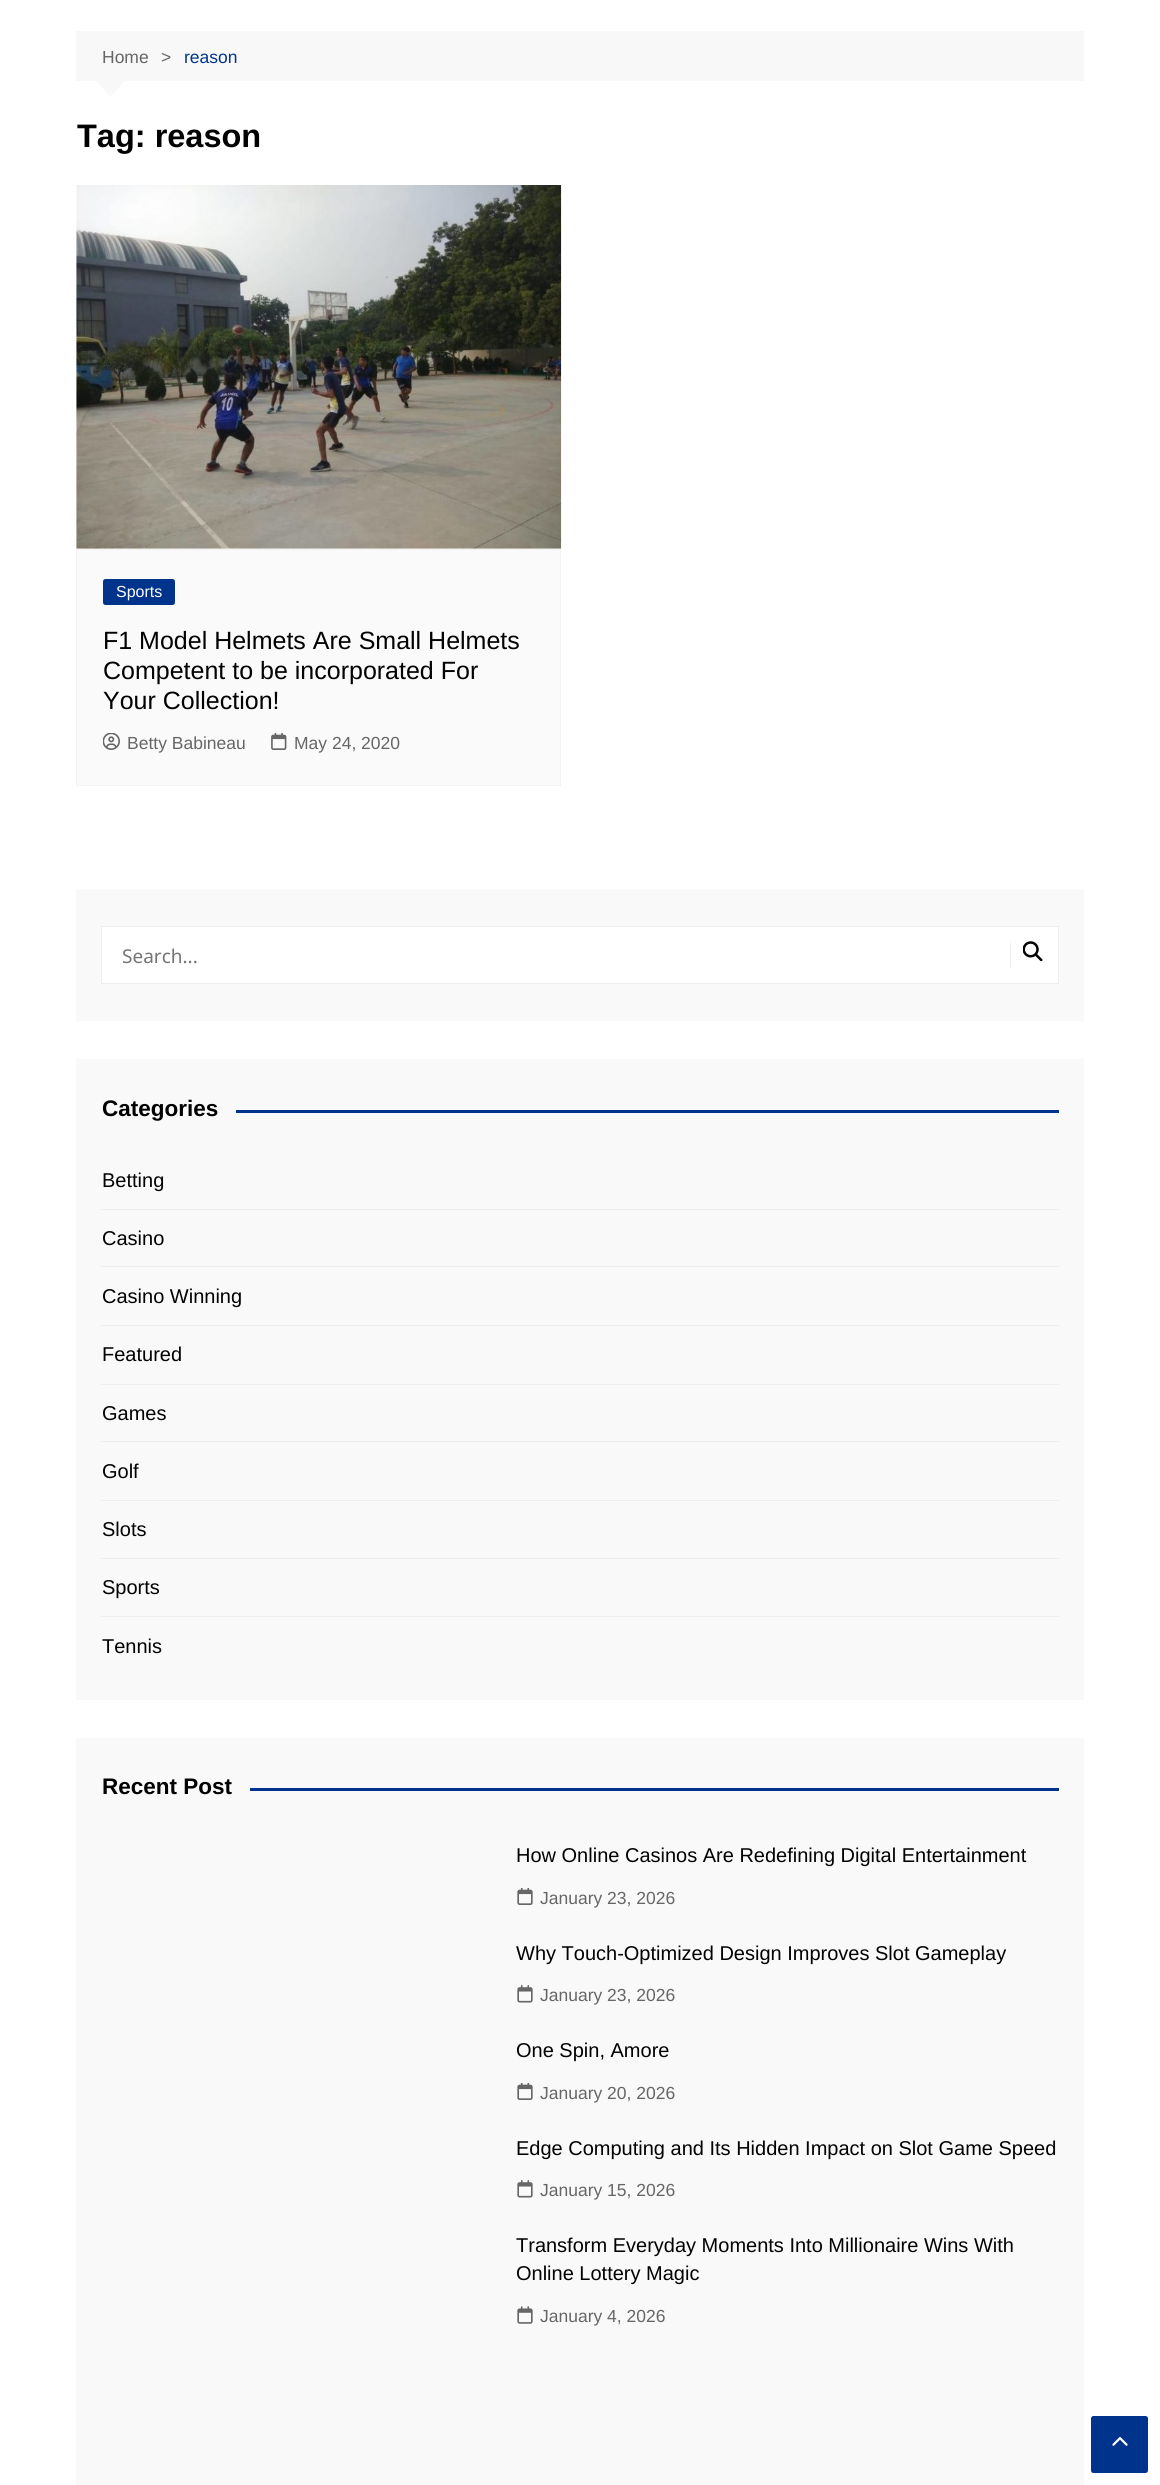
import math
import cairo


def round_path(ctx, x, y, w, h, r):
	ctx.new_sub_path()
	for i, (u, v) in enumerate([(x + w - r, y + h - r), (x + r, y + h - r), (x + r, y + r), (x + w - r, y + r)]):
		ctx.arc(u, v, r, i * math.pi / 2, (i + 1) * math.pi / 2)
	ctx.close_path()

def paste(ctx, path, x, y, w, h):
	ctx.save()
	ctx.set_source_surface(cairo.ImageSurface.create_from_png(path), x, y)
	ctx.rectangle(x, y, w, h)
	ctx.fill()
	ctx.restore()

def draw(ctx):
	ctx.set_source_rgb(1, 1, 1)
	ctx.paint()
	ctx.set_source_rgb(0.969, 0.969, 0.969)
	ctx.rectangle(76, 31, 1008, 50)
	ctx.fill()
	ctx.select_font_face('Liberation Sans')
	ctx.set_font_size(17.5)
	ctx.set_source_rgb(0.4, 0.4, 0.4)
	ctx.move_to(102, 63)
	ctx.show_text('Home')
	ctx.move_to(161, 63)
	ctx.show_text('>')
	ctx.set_source_rgb(0, 0.204, 0.549)
	ctx.move_to(184, 63)
	ctx.show_text('reason')
	ctx.set_source_rgb(0.969, 0.969, 0.969)
	ctx.new_path()
	ctx.move_to(95.5, 80.5)
	ctx.line_to(125.5, 80.5)
	ctx.line_to(110.5, 97)
	ctx.close_path()
	ctx.fill()
	ctx.select_font_face('Liberation Sans', cairo.FONT_SLANT_NORMAL, cairo.FONT_WEIGHT_BOLD)
	ctx.set_font_size(32.5)
	ctx.set_source_rgb(0.004, 0.004, 0.004)
	ctx.move_to(77, 147)
	ctx.show_text('Tag: reason')
	paste(ctx, 'media/1.png', 76, 185, 486, 364)
	ctx.set_source_rgb(0.98, 0.98, 0.98)
	ctx.rectangle(76.5, 549.5, 484, 236)
	ctx.fill_preserve()
	ctx.set_source_rgb(0.953, 0.953, 0.953)
	ctx.set_line_width(1)
	ctx.stroke()
	ctx.set_source_rgb(0, 0.204, 0.549)
	round_path(ctx, 103, 579, 72, 26, 2.5)
	ctx.fill()
	ctx.select_font_face('Liberation Sans')
	ctx.set_font_size(16)
	ctx.set_source_rgb(1, 1, 1)
	ctx.move_to(116, 597)
	ctx.show_text('Sports')
	ctx.set_font_size(25)
	ctx.set_source_rgb(0.004, 0.004, 0.004)
	for x, y, s in [
		(103, 649, 'F1 Model Helmets Are Small Helmets'),
		(103, 679, 'Competent to be incorporated For'),
		(103, 709, 'Your Collection!'),
	]:
		ctx.move_to(x, y)
		ctx.show_text(s)
	paste(ctx, 'media/2.png', 103, 733, 17, 17)
	ctx.set_font_size(17.5)
	ctx.set_source_rgb(0.4, 0.4, 0.4)
	ctx.move_to(127, 749)
	ctx.show_text('Betty Babineau')
	paste(ctx, 'media/3.png', 271, 733, 16, 17)
	ctx.move_to(294, 749)
	ctx.show_text('May 24, 2020')
	ctx.set_source_rgb(0.973, 0.973, 0.973)
	ctx.rectangle(76, 889, 1008, 132)
	ctx.fill()
	ctx.set_source_rgb(1, 1, 1)
	ctx.rectangle(101.5, 926.5, 957, 57)
	ctx.fill_preserve()
	ctx.set_source_rgb(0.933, 0.933, 0.933)
	ctx.stroke()
	ctx.select_font_face('Noto Sans')
	ctx.set_font_size(19)
	ctx.set_source_rgb(0.459, 0.459, 0.459)
	ctx.move_to(122, 963)
	ctx.show_text('Search...')
	ctx.set_source_rgb(0.933, 0.933, 0.933)
	ctx.rectangle(1010, 943, 1, 25)
	ctx.fill()
	paste(ctx, 'media/4.png', 1023, 941, 20, 20)
	ctx.set_source_rgb(0.973, 0.973, 0.973)
	ctx.rectangle(76, 1059, 1008, 641)
	ctx.fill()
	ctx.select_font_face('Liberation Sans', cairo.FONT_SLANT_NORMAL, cairo.FONT_WEIGHT_BOLD)
	ctx.set_font_size(22.5)
	ctx.set_source_rgb(0.004, 0.004, 0.004)
	ctx.move_to(102, 1116)
	ctx.show_text('Categories')
	ctx.set_source_rgb(0, 0.204, 0.549)
	ctx.rectangle(236, 1110, 823, 3)
	ctx.fill()
	ctx.set_source_rgb(0.933, 0.933, 0.933)
	ctx.rectangle(101, 1209, 958, 1)
	ctx.fill()
	ctx.select_font_face('Liberation Sans')
	ctx.set_font_size(20)
	ctx.set_source_rgb(0.004, 0.004, 0.004)
	ctx.move_to(102, 1187)
	ctx.show_text('Betting')
	ctx.set_source_rgb(0.933, 0.933, 0.933)
	ctx.rectangle(101, 1266, 958, 1)
	ctx.fill()
	ctx.set_source_rgb(0.004, 0.004, 0.004)
	ctx.move_to(102, 1245)
	ctx.show_text('Casino')
	ctx.set_source_rgb(0.933, 0.933, 0.933)
	ctx.rectangle(101, 1325, 958, 1)
	ctx.fill()
	ctx.set_source_rgb(0.004, 0.004, 0.004)
	ctx.move_to(102, 1303)
	ctx.show_text('Casino Winning')
	ctx.set_source_rgb(0.933, 0.933, 0.933)
	ctx.rectangle(101, 1384, 958, 1)
	ctx.fill()
	ctx.set_source_rgb(0.004, 0.004, 0.004)
	ctx.move_to(102, 1361)
	ctx.show_text('Featured')
	ctx.set_source_rgb(0.933, 0.933, 0.933)
	ctx.rectangle(101, 1441, 958, 1)
	ctx.fill()
	ctx.set_source_rgb(0.004, 0.004, 0.004)
	ctx.move_to(102, 1420)
	ctx.show_text('Games')
	ctx.set_source_rgb(0.933, 0.933, 0.933)
	ctx.rectangle(101, 1500, 958, 1)
	ctx.fill()
	ctx.set_source_rgb(0.004, 0.004, 0.004)
	ctx.move_to(102, 1478)
	ctx.show_text('Golf')
	ctx.set_source_rgb(0.933, 0.933, 0.933)
	ctx.rectangle(101, 1558, 958, 1)
	ctx.fill()
	ctx.set_source_rgb(0.004, 0.004, 0.004)
	ctx.move_to(102, 1536)
	ctx.show_text('Slots')
	ctx.set_source_rgb(0.933, 0.933, 0.933)
	ctx.rectangle(101, 1616, 958, 1)
	ctx.fill()
	ctx.set_source_rgb(0.004, 0.004, 0.004)
	ctx.move_to(102, 1594)
	ctx.show_text('Sports')
	ctx.move_to(102, 1653)
	ctx.show_text('Tennis')
	ctx.set_source_rgb(0.973, 0.973, 0.973)
	ctx.rectangle(76, 1738, 1008, 747)
	ctx.fill()
	ctx.select_font_face('Liberation Sans', cairo.FONT_SLANT_NORMAL, cairo.FONT_WEIGHT_BOLD)
	ctx.set_font_size(22.5)
	ctx.set_source_rgb(0.004, 0.004, 0.004)
	ctx.move_to(102, 1794)
	ctx.show_text('Recent Post')
	ctx.set_source_rgb(0, 0.204, 0.549)
	ctx.rectangle(250, 1788, 809, 3)
	ctx.fill()
	ctx.select_font_face('Liberation Sans')
	ctx.set_font_size(20)
	ctx.set_source_rgb(0.004, 0.004, 0.004)
	ctx.move_to(516, 1862)
	ctx.show_text('How Online Casinos Are Redefining Digital Entertainment')
	paste(ctx, 'media/5.png', 517, 1888, 16, 17)
	ctx.set_font_size(17.5)
	ctx.set_source_rgb(0.4, 0.4, 0.4)
	ctx.move_to(540, 1904)
	ctx.show_text('January 23, 2026')
	ctx.set_font_size(20)
	ctx.set_source_rgb(0.004, 0.004, 0.004)
	ctx.move_to(516, 1960)
	ctx.show_text('Why Touch-Optimized Design Improves Slot Gameplay')
	paste(ctx, 'media/6.png', 517, 1985, 16, 18)
	ctx.set_font_size(17.5)
	ctx.set_source_rgb(0.4, 0.4, 0.4)
	ctx.move_to(540, 2001)
	ctx.show_text('January 23, 2026')
	ctx.set_font_size(20)
	ctx.set_source_rgb(0.004, 0.004, 0.004)
	ctx.move_to(516, 2057)
	ctx.show_text('One Spin, Amore')
	paste(ctx, 'media/5.png', 517, 2083, 16, 17)
	ctx.set_font_size(17.5)
	ctx.set_source_rgb(0.4, 0.4, 0.4)
	ctx.move_to(540, 2099)
	ctx.show_text('January 20, 2026')
	ctx.set_font_size(20)
	ctx.set_source_rgb(0.004, 0.004, 0.004)
	ctx.move_to(516, 2155)
	ctx.show_text('Edge Computing and Its Hidden Impact on Slot Game Speed')
	paste(ctx, 'media/6.png', 517, 2180, 16, 18)
	ctx.set_font_size(17.5)
	ctx.set_source_rgb(0.4, 0.4, 0.4)
	ctx.move_to(540, 2196)
	ctx.show_text('January 15, 2026')
	ctx.set_font_size(20)
	ctx.set_source_rgb(0.004, 0.004, 0.004)
	ctx.move_to(516, 2252)
	ctx.show_text('Transform Everyday Moments Into Millionaire Wins With')
	ctx.move_to(516, 2280)
	ctx.show_text('Online Lottery Magic')
	paste(ctx, 'media/7.png', 517, 2306, 16, 18)
	ctx.set_font_size(17.5)
	ctx.set_source_rgb(0.4, 0.4, 0.4)
	ctx.move_to(540, 2322)
	ctx.show_text('January 4, 2026')
	ctx.set_source_rgb(0, 0.204, 0.549)
	round_path(ctx, 1091, 2416, 57, 57, 2.5)
	ctx.fill()
	paste(ctx, 'media/8.png', 1112, 2437, 16, 9)


surface = cairo.ImageSurface(cairo.FORMAT_RGB24, 1160, 2485)
ctx = cairo.Context(surface)
options = cairo.FontOptions()
options.set_hint_metrics(cairo.HINT_METRICS_OFF)
options.set_hint_style(cairo.HINT_STYLE_NONE)
ctx.set_font_options(options)
ctx.set_miter_limit(4)
draw(ctx)
surface.write_to_png('image.png')
